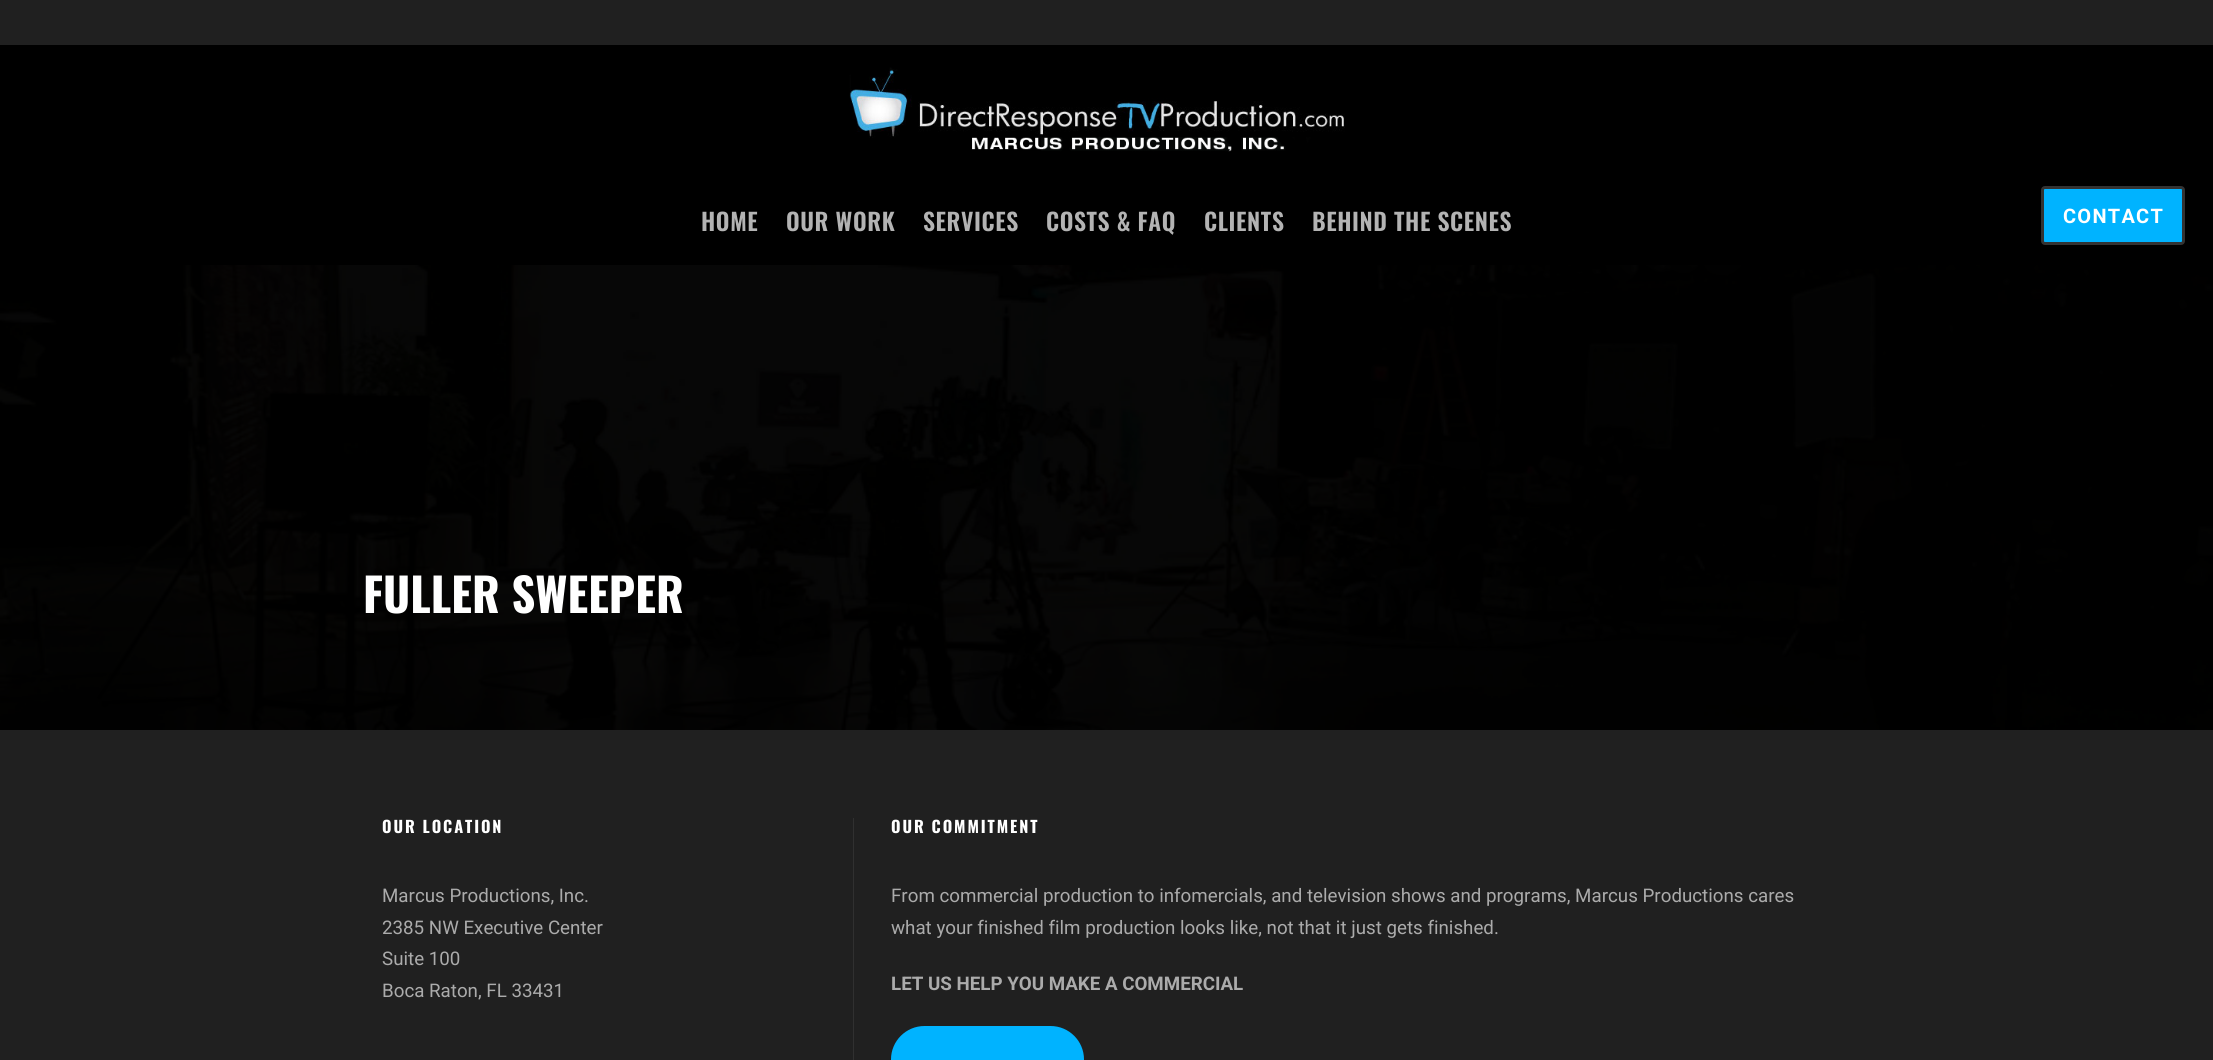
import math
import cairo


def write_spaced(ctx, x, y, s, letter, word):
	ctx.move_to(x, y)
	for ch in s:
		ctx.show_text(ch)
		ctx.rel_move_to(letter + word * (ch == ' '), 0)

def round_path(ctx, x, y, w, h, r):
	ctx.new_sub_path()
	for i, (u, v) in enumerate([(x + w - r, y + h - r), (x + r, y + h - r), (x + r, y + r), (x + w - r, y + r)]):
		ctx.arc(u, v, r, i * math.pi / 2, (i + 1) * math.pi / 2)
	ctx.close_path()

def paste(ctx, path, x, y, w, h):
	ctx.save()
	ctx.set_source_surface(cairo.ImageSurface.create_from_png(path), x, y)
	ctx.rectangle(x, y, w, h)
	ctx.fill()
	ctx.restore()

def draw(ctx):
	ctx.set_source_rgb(0.125, 0.125, 0.125)
	ctx.paint()
	ctx.set_source_rgb(0, 0, 0)
	ctx.rectangle(0, 45, 2213, 220)
	ctx.fill()
	paste(ctx, 'media/1.png', 849, 67, 496, 85)
	ctx.select_font_face('Oswald SemiBold')
	ctx.set_font_size(23.75)
	ctx.set_source_rgb(0.702, 0.702, 0.702)
	for x, y, s in [
		(701, 231, 'HOME'),
		(786, 231, 'OUR WORK'),
		(923, 231, 'SERVICES'),
		(1046, 231, 'COSTS & FAQ'),
		(1204, 231, 'CLIENTS'),
		(1312, 231, 'BEHIND THE SCENES'),
	]:
		write_spaced(ctx, x, y, s, 0.6, 0)
	ctx.set_source_rgb(0, 0.702, 1)
	round_path(ctx, 2042.5, 187.5, 141, 56, 2.5)
	ctx.fill_preserve()
	ctx.set_source_rgb(0.2, 0.2, 0.2)
	ctx.set_line_width(3)
	ctx.stroke()
	ctx.select_font_face('Roboto', cairo.FONT_SLANT_NORMAL, cairo.FONT_WEIGHT_BOLD)
	ctx.set_font_size(20)
	ctx.set_source_rgb(1, 1, 1)
	write_spaced(ctx, 2063, 223, 'CONTACT', 1.25, 0)
	paste(ctx, 'media/2.png', 0, 265, 2213, 465)
	ctx.select_font_face('Oswald', cairo.FONT_SLANT_NORMAL, cairo.FONT_WEIGHT_BOLD)
	ctx.set_font_size(46.25)
	ctx.move_to(363, 613)
	ctx.show_text('FULLER SWEEPER')
	ctx.set_font_size(16.25)
	write_spaced(ctx, 382, 833, 'OUR LOCATION', 1.9, 0)
	ctx.select_font_face('Roboto')
	ctx.set_font_size(18.75)
	ctx.set_source_rgb(0.671, 0.671, 0.671)
	for x, y, s in [
		(382, 902, 'Marcus Productions, Inc.'),
		(382, 934, '2385 NW Executive Center'),
		(382, 965, 'Suite 100'),
		(382, 997, 'Boca Raton, FL 33431'),
	]:
		ctx.move_to(x, y)
		ctx.show_text(s)
	ctx.set_source_rgb(0.188, 0.188, 0.188)
	ctx.rectangle(853, 818, 1, 242)
	ctx.fill()
	ctx.select_font_face('Oswald', cairo.FONT_SLANT_NORMAL, cairo.FONT_WEIGHT_BOLD)
	ctx.set_font_size(16.25)
	ctx.set_source_rgb(1, 1, 1)
	write_spaced(ctx, 891, 833, 'OUR COMMITMENT', 1.9, 0)
	ctx.select_font_face('Roboto')
	ctx.set_font_size(18.75)
	ctx.set_source_rgb(0.671, 0.671, 0.671)
	ctx.move_to(891, 902)
	ctx.show_text('From commercial production to infomercials, and television shows and programs, Marcus Productions cares')
	ctx.move_to(891, 934)
	ctx.show_text('what your finished film production looks like, not that it just gets finished.')
	ctx.select_font_face('Roboto', cairo.FONT_SLANT_NORMAL, cairo.FONT_WEIGHT_BOLD)
	ctx.move_to(891, 990)
	ctx.show_text('LET US HELP YOU MAKE A COMMERCIAL')
	ctx.set_source_rgb(0, 0.702, 1)
	round_path(ctx, 891, 1026, 193, 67, 33.5)
	ctx.fill()


surface = cairo.ImageSurface(cairo.FORMAT_RGB24, 2213, 1060)
ctx = cairo.Context(surface)
options = cairo.FontOptions()
options.set_hint_metrics(cairo.HINT_METRICS_OFF)
options.set_hint_style(cairo.HINT_STYLE_NONE)
ctx.set_font_options(options)
ctx.set_miter_limit(4)
draw(ctx)
surface.write_to_png('image.png')
